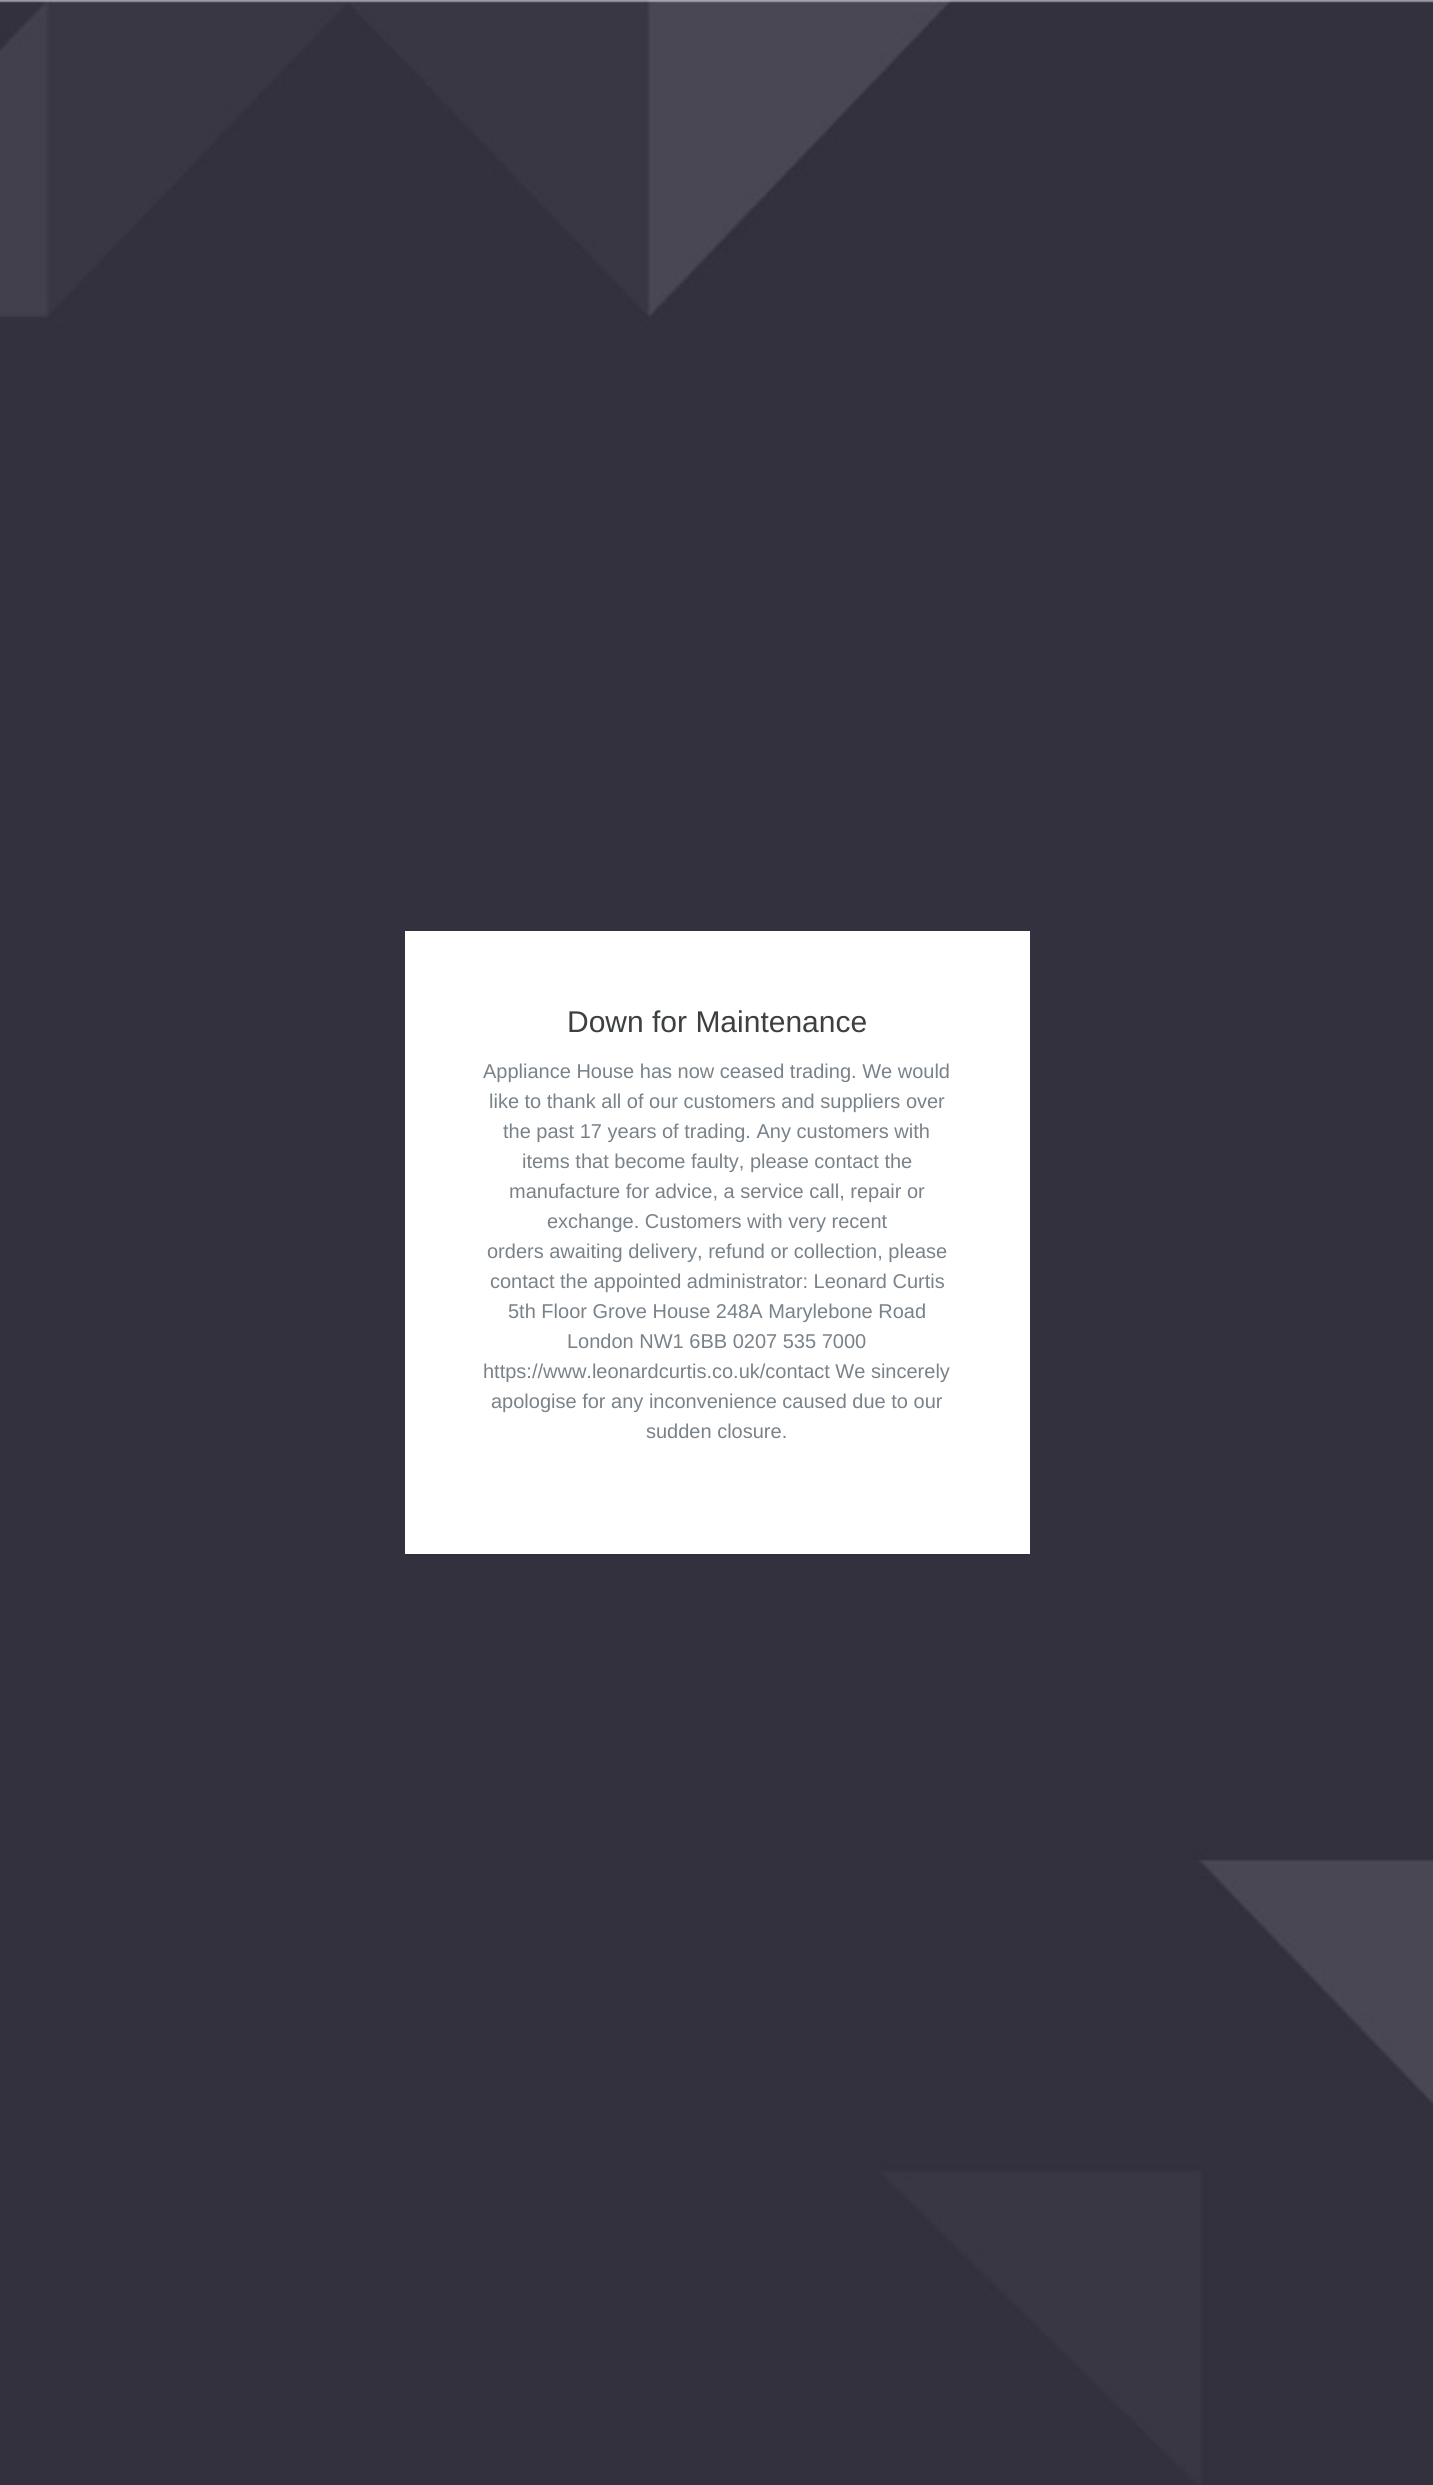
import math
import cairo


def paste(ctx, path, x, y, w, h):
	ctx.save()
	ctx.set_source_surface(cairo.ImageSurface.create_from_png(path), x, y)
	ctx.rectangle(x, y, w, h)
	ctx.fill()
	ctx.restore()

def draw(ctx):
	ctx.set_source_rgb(1, 1, 1)
	ctx.paint()
	paste(ctx, 'media/1.png', 0, 0, 1433, 2485)
	ctx.set_source_rgb(0.184, 0.18, 0.227)
	ctx.rectangle(405, 1554, 625, 2)
	ctx.fill()
	ctx.set_source_rgb(1, 1, 1)
	ctx.rectangle(405, 931, 625, 623)
	ctx.fill()
	ctx.select_font_face('Liberation Sans')
	ctx.set_font_size(30)
	ctx.set_source_rgb(0.235, 0.251, 0.263)
	ctx.move_to(567, 1032)
	ctx.show_text('Down for Maintenance')
	ctx.set_font_size(20)
	ctx.set_source_rgb(0.475, 0.51, 0.537)
	for x, y, s in [
		(483, 1078, 'Appliance House has now ceased trading. We would'),
		(489, 1108, 'like to thank all of our customers and suppliers over'),
		(503, 1138, 'the past 17 years of trading. Any customers with'),
		(522, 1168, 'items that become faulty, please contact the'),
		(509, 1198, 'manufacture for advice, a service call, repair or'),
		(547, 1228, 'exchange. Customers with very recent'),
		(487, 1258, 'orders awaiting delivery, refund or collection, please'),
		(490, 1288, 'contact the appointed administrator: Leonard Curtis'),
		(508, 1318, '5th Floor Grove House 248A Marylebone Road'),
		(567, 1348, 'London NW1 6BB 0207 535 7000'),
		(483, 1378, 'https://www.leonardcurtis.co.uk/contact We sincerely'),
		(491, 1408, 'apologise for any inconvenience caused due to our'),
		(646, 1438, 'sudden closure.'),
	]:
		ctx.move_to(x, y)
		ctx.show_text(s)


surface = cairo.ImageSurface(cairo.FORMAT_RGB24, 1433, 2485)
ctx = cairo.Context(surface)
options = cairo.FontOptions()
options.set_hint_metrics(cairo.HINT_METRICS_OFF)
options.set_hint_style(cairo.HINT_STYLE_NONE)
ctx.set_font_options(options)
ctx.set_miter_limit(4)
draw(ctx)
surface.write_to_png('image.png')
